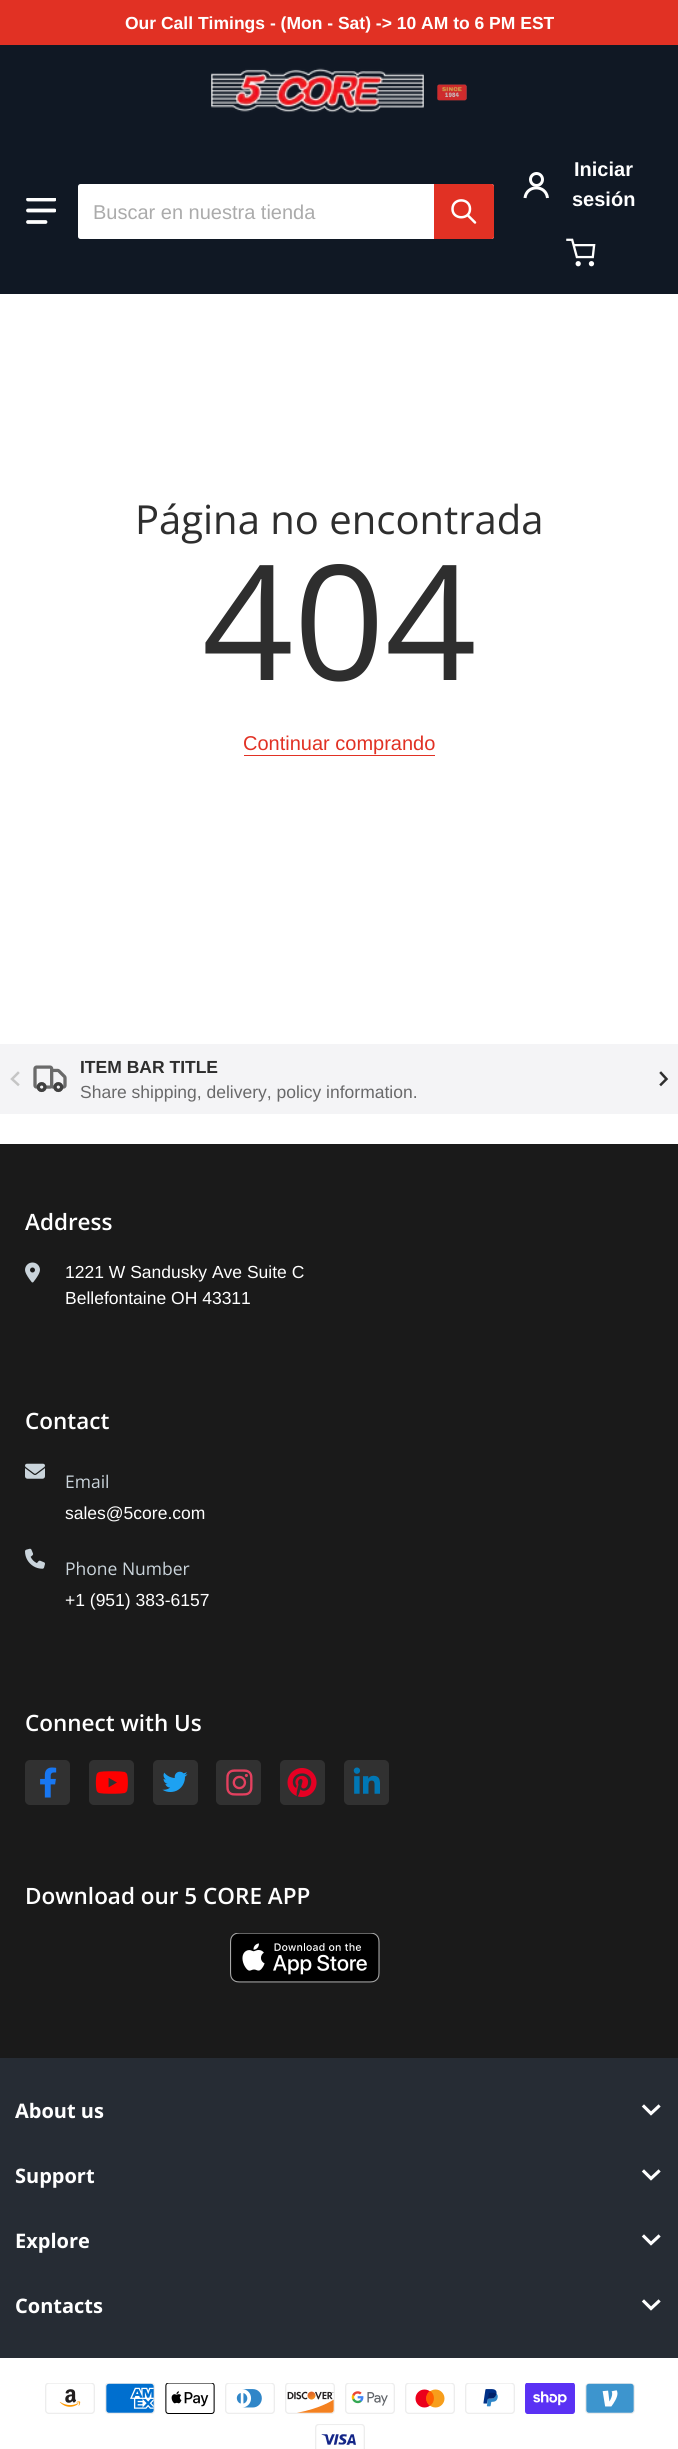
import math
import cairo


def round_path(ctx, x, y, w, h, r):
	ctx.new_sub_path()
	for i, (u, v) in enumerate([(x + w - r, y + h - r), (x + r, y + h - r), (x + r, y + r), (x + w - r, y + r)]):
		ctx.arc(u, v, r, i * math.pi / 2, (i + 1) * math.pi / 2)
	ctx.close_path()

def paste(ctx, path, x, y, w, h):
	ctx.save()
	ctx.set_source_surface(cairo.ImageSurface.create_from_png(path), x, y)
	ctx.rectangle(x, y, w, h)
	ctx.fill()
	ctx.restore()

def draw(ctx):
	ctx.set_source_rgb(1, 1, 1)
	ctx.paint()
	ctx.set_source_rgb(0.882, 0.192, 0.141)
	ctx.rectangle(0, 0, 678, 45)
	ctx.fill()
	ctx.select_font_face('Liberation Sans', cairo.FONT_SLANT_NORMAL, cairo.FONT_WEIGHT_BOLD)
	ctx.set_font_size(17.5)
	ctx.set_source_rgb(1, 1, 1)
	ctx.move_to(125, 29)
	ctx.show_text('Our Call Timings - (Mon - Sat) -> 10 AM to 6 PM EST')
	ctx.set_source_rgb(0.063, 0.094, 0.141)
	ctx.rectangle(0, 45, 678, 249)
	ctx.fill()
	paste(ctx, 'media/1.png', 211, 68, 213, 45)
	paste(ctx, 'media/2.png', 437, 84, 30, 17)
	ctx.save()
	ctx.rectangle(26, 198, 30, 27)
	ctx.clip()
	ctx.new_path()
	ctx.move_to(28, 199.5)
	ctx.line_to(54.5, 199.5)
	ctx.move_to(28, 210.5)
	ctx.line_to(54.5, 210.5)
	ctx.set_source_rgb(1, 1, 1)
	ctx.set_line_width(3.8)
	ctx.set_line_cap(cairo.LINE_CAP_ROUND)
	ctx.stroke()
	ctx.restore()
	ctx.new_path()
	ctx.move_to(28, 222)
	ctx.line_to(45.5, 222)
	ctx.set_source_rgb(1, 1, 1)
	ctx.set_line_width(3.8)
	ctx.set_line_cap(cairo.LINE_CAP_ROUND)
	ctx.stroke()
	ctx.arc(536.5, 179.5, 6, 0, 2 * math.pi)
	ctx.set_line_width(3)
	ctx.set_line_cap(cairo.LINE_CAP_BUTT)
	ctx.stroke()
	ctx.new_path()
	ctx.move_to(547.5, 198)
	ctx.curve_to(546, 184.5, 526.5, 184.5, 525, 198)
	ctx.stroke()
	ctx.set_font_size(20)
	ctx.move_to(574, 176)
	ctx.show_text('Iniciar')
	ctx.move_to(572, 206)
	ctx.show_text('sesión')
	paste(ctx, 'media/3.png', 566, 238, 30, 29)
	round_path(ctx, 78, 184, 416, 55, 2.5)
	ctx.fill()
	ctx.select_font_face('Liberation Sans')
	ctx.set_source_rgb(0.671, 0.671, 0.671)
	ctx.move_to(93, 219)
	ctx.show_text('Buscar en nuestra tienda')
	ctx.set_source_rgb(0.882, 0.192, 0.141)
	ctx.new_path()
	ctx.move_to(434, 184)
	ctx.line_to(491.5, 184)
	ctx.curve_to(493, 184, 494, 185, 494, 186.5)
	ctx.line_to(494, 236.5)
	ctx.curve_to(494, 238, 493, 239, 491.5, 239)
	ctx.line_to(434, 239)
	ctx.close_path()
	ctx.fill()
	ctx.new_path()
	ctx.move_to(475, 222.5)
	ctx.line_to(467.5, 215)
	ctx.move_to(470, 209)
	ctx.curve_to(470, 220, 452.5, 220, 452.5, 209)
	ctx.curve_to(452.5, 197.5, 470, 197.5, 470, 209)
	ctx.close_path()
	ctx.set_source_rgb(1, 1, 1)
	ctx.set_line_width(2.5)
	ctx.set_line_cap(cairo.LINE_CAP_ROUND)
	ctx.set_line_join(cairo.LINE_JOIN_ROUND)
	ctx.stroke()
	ctx.select_font_face('Open Sans')
	ctx.set_font_size(40)
	ctx.set_source_rgb(0.18, 0.18, 0.18)
	ctx.move_to(135, 534)
	ctx.show_text('Página no encontrada')
	ctx.set_font_size(160)
	ctx.move_to(202, 680)
	ctx.show_text('404')
	ctx.select_font_face('Liberation Sans')
	ctx.set_font_size(20)
	ctx.set_source_rgb(0.882, 0.192, 0.141)
	ctx.move_to(243, 750)
	ctx.show_text('Continuar comprando')
	ctx.rectangle(244, 755, 191, 1)
	ctx.fill()
	ctx.set_source_rgb(0.957, 0.957, 0.961)
	ctx.rectangle(0, 1044, 678, 70)
	ctx.fill()
	paste(ctx, 'media/4.png', 33, 1065, 34, 28)
	ctx.select_font_face('Liberation Sans', cairo.FONT_SLANT_NORMAL, cairo.FONT_WEIGHT_BOLD)
	ctx.set_font_size(17.5)
	ctx.set_source_rgb(0.18, 0.18, 0.18)
	ctx.move_to(80, 1073)
	ctx.show_text('ITEM BAR TITLE')
	ctx.select_font_face('Liberation Sans')
	ctx.set_source_rgb(0.412, 0.412, 0.416)
	ctx.move_to(80, 1098)
	ctx.show_text('Share shipping, delivery, policy information.')
	ctx.new_path()
	ctx.move_to(18, 1073)
	ctx.line_to(12, 1079)
	ctx.line_to(18, 1084.5)
	ctx.set_source_rgb(0.773, 0.773, 0.773)
	ctx.set_line_cap(cairo.LINE_CAP_SQUARE)
	ctx.set_line_join(cairo.LINE_JOIN_MITER)
	ctx.stroke()
	ctx.new_path()
	ctx.move_to(661, 1084.5)
	ctx.line_to(666.5, 1079)
	ctx.line_to(661, 1073)
	ctx.set_source_rgb(0.18, 0.18, 0.18)
	ctx.stroke()
	ctx.set_source_rgb(0.149, 0.173, 0.204)
	ctx.rectangle(0, 2058, 678, 300)
	ctx.fill()
	ctx.set_source_rgb(0.102, 0.102, 0.102)
	ctx.rectangle(0, 1144, 678, 914)
	ctx.fill()
	ctx.select_font_face('Open Sans SemiBold')
	ctx.set_font_size(22.5)
	ctx.set_source_rgb(1, 1, 1)
	ctx.move_to(25, 1230)
	ctx.show_text('Address')
	paste(ctx, 'media/5.png', 25, 1262, 15, 21)
	ctx.select_font_face('Liberation Sans')
	ctx.set_font_size(17.5)
	ctx.move_to(65, 1278)
	ctx.show_text('1221 W Sandusky Ave Suite C')
	ctx.move_to(65, 1304)
	ctx.show_text('Bellefontaine OH 43311')
	ctx.select_font_face('Open Sans SemiBold')
	ctx.set_font_size(22.5)
	ctx.move_to(25, 1429)
	ctx.show_text('Contact')
	paste(ctx, 'media/6.png', 25, 1463, 20, 16)
	ctx.select_font_face('Open Sans')
	ctx.set_font_size(17.5)
	ctx.set_source_rgb(0.792, 0.831, 0.859)
	ctx.move_to(65, 1488)
	ctx.show_text('Email')
	ctx.select_font_face('Liberation Sans')
	ctx.set_source_rgb(1, 1, 1)
	ctx.move_to(65, 1519)
	ctx.show_text('sales@5core.com')
	paste(ctx, 'media/7.png', 25, 1548, 20, 21)
	ctx.select_font_face('Open Sans')
	ctx.set_source_rgb(0.792, 0.831, 0.859)
	ctx.move_to(65, 1575)
	ctx.show_text('Phone Number')
	ctx.select_font_face('Liberation Sans')
	ctx.set_source_rgb(1, 1, 1)
	ctx.move_to(65, 1606)
	ctx.show_text('+1 (951) 383-6157')
	ctx.select_font_face('Open Sans SemiBold')
	ctx.set_font_size(22.5)
	ctx.move_to(25, 1731)
	ctx.show_text('Connect with Us')
	ctx.set_source_rgb(0.192, 0.192, 0.192)
	round_path(ctx, 25, 1760, 45, 45, 5)
	ctx.fill()
	paste(ctx, 'media/8.png', 40, 1767, 17, 31)
	round_path(ctx, 89, 1760, 45, 45, 5)
	ctx.fill()
	paste(ctx, 'media/9.png', 95, 1771, 33, 23)
	round_path(ctx, 153, 1760, 45, 45, 5)
	ctx.fill()
	paste(ctx, 'media/10.png', 162, 1771, 26, 21)
	round_path(ctx, 216, 1760, 45, 45, 5)
	ctx.fill()
	paste(ctx, 'media/11.png', 226, 1769, 27, 27)
	round_path(ctx, 280, 1760, 45, 45, 5)
	ctx.fill()
	paste(ctx, 'media/12.png', 287, 1768, 30, 29)
	round_path(ctx, 344, 1760, 45, 45, 5)
	ctx.fill()
	paste(ctx, 'media/13.png', 353, 1767, 27, 27)
	ctx.set_source_rgb(1, 1, 1)
	ctx.move_to(25, 1904)
	ctx.show_text('Download our 5 CORE APP')
	paste(ctx, 'media/14.png', 230, 1933, 150, 50)
	ctx.select_font_face('Open Sans', cairo.FONT_SLANT_NORMAL, cairo.FONT_WEIGHT_BOLD)
	ctx.set_font_size(20)
	ctx.move_to(15, 2118)
	ctx.show_text('About us')
	ctx.new_path()
	ctx.move_to(644, 2106.5)
	ctx.line_to(651, 2113.5)
	ctx.line_to(658.5, 2106.5)
	ctx.set_line_width(3.1)
	ctx.stroke()
	ctx.move_to(15, 2183)
	ctx.show_text('Support')
	ctx.new_path()
	ctx.move_to(644, 2171.5)
	ctx.line_to(651, 2178.5)
	ctx.line_to(658.5, 2171.5)
	ctx.stroke()
	ctx.move_to(15, 2248)
	ctx.show_text('Explore')
	ctx.new_path()
	ctx.move_to(644, 2236.5)
	ctx.line_to(651, 2243.5)
	ctx.line_to(658.5, 2236.5)
	ctx.stroke()
	ctx.move_to(15, 2313)
	ctx.show_text('Contacts')
	ctx.new_path()
	ctx.move_to(644, 2301.5)
	ctx.line_to(651, 2308.5)
	ctx.line_to(658.5, 2301.5)
	ctx.stroke()
	paste(ctx, 'media/15.png', 45, 2383, 50, 31)
	paste(ctx, 'media/16.png', 105, 2383, 50, 31)
	paste(ctx, 'media/17.png', 165, 2383, 50, 31)
	paste(ctx, 'media/18.png', 225, 2383, 50, 31)
	paste(ctx, 'media/19.png', 285, 2383, 50, 31)
	paste(ctx, 'media/20.png', 345, 2383, 50, 31)
	paste(ctx, 'media/21.png', 405, 2383, 50, 31)
	paste(ctx, 'media/22.png', 465, 2383, 50, 31)
	paste(ctx, 'media/23.png', 525, 2383, 50, 31)
	paste(ctx, 'media/24.png', 585, 2383, 50, 31)
	paste(ctx, 'media/25.png', 315, 2424, 50, 25)


surface = cairo.ImageSurface(cairo.FORMAT_RGB24, 678, 2449)
ctx = cairo.Context(surface)
options = cairo.FontOptions()
options.set_hint_metrics(cairo.HINT_METRICS_OFF)
options.set_hint_style(cairo.HINT_STYLE_NONE)
ctx.set_font_options(options)
ctx.set_miter_limit(4)
draw(ctx)
surface.write_to_png('image.png')
